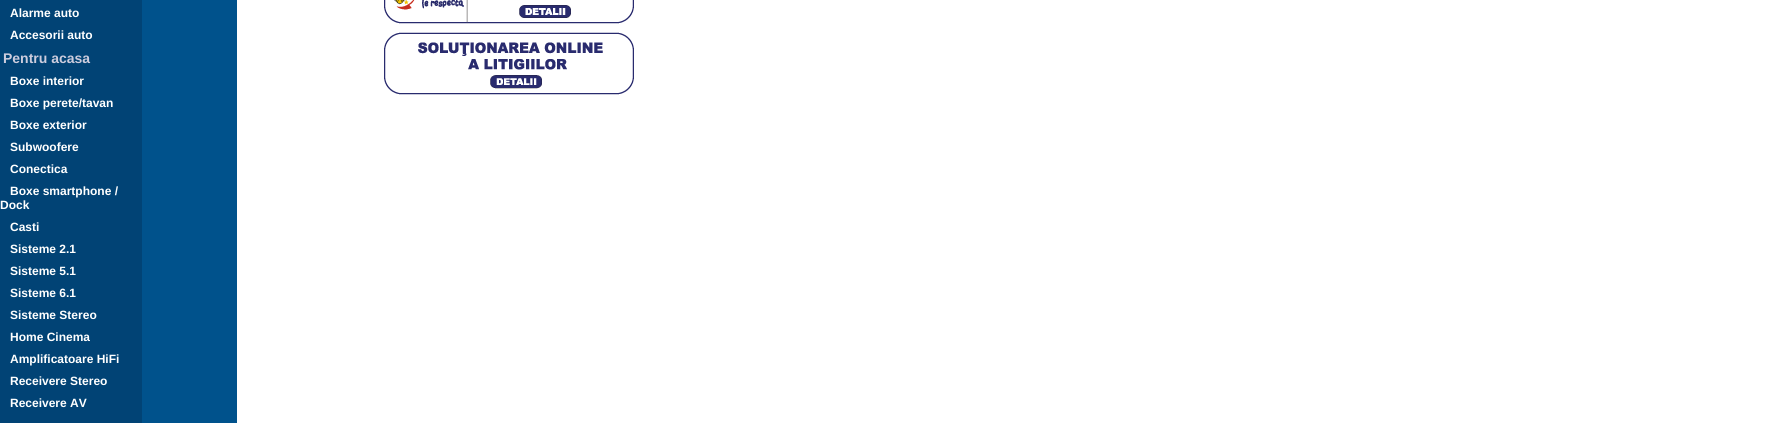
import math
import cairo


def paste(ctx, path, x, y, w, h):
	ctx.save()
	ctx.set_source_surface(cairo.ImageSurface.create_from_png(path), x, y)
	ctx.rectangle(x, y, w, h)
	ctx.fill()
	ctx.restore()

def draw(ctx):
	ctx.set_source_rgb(1, 1, 1)
	ctx.paint()
	ctx.set_source_rgb(0.004, 0.263, 0.459)
	ctx.rectangle(0, 0, 142, 423)
	ctx.fill()
	ctx.select_font_face('Liberation Sans', cairo.FONT_SLANT_NORMAL, cairo.FONT_WEIGHT_BOLD)
	ctx.set_font_size(12)
	ctx.set_source_rgb(1, 1, 1)
	ctx.move_to(10, 17)
	ctx.show_text('Alarme auto')
	ctx.move_to(10, 39)
	ctx.show_text('Accesorii auto')
	ctx.set_font_size(14)
	ctx.set_source_rgb(0.8, 0.8, 0.867)
	ctx.move_to(3, 63)
	ctx.show_text('Pentru acasa')
	ctx.set_font_size(12)
	ctx.set_source_rgb(1, 1, 1)
	for x, y, s in [
		(10, 85, 'Boxe interior'),
		(10, 107, 'Boxe perete/tavan'),
		(10, 129, 'Boxe exterior'),
		(10, 151, 'Subwoofere'),
		(10, 173, 'Conectica'),
		(10, 195, 'Boxe smartphone /'),
		(0, 209, 'Dock'),
		(10, 231, 'Casti'),
		(10, 253, 'Sisteme 2.1'),
		(10, 275, 'Sisteme 5.1'),
		(10, 297, 'Sisteme 6.1'),
		(10, 319, 'Sisteme Stereo'),
		(10, 341, 'Home Cinema'),
		(10, 363, 'Amplificatoare HiFi'),
		(10, 385, 'Receivere Stereo'),
		(10, 407, 'Receivere AV'),
	]:
		ctx.move_to(x, y)
		ctx.show_text(s)
	ctx.set_source_rgb(0, 0.322, 0.549)
	ctx.rectangle(142, 0, 95, 423)
	ctx.fill()
	paste(ctx, 'media/1.png', 384, 0, 250, 24)
	paste(ctx, 'media/2.png', 384, 32, 250, 63)


surface = cairo.ImageSurface(cairo.FORMAT_RGB24, 1780, 423)
ctx = cairo.Context(surface)
options = cairo.FontOptions()
options.set_hint_metrics(cairo.HINT_METRICS_OFF)
options.set_hint_style(cairo.HINT_STYLE_NONE)
ctx.set_font_options(options)
ctx.set_miter_limit(4)
draw(ctx)
surface.write_to_png('image.png')
